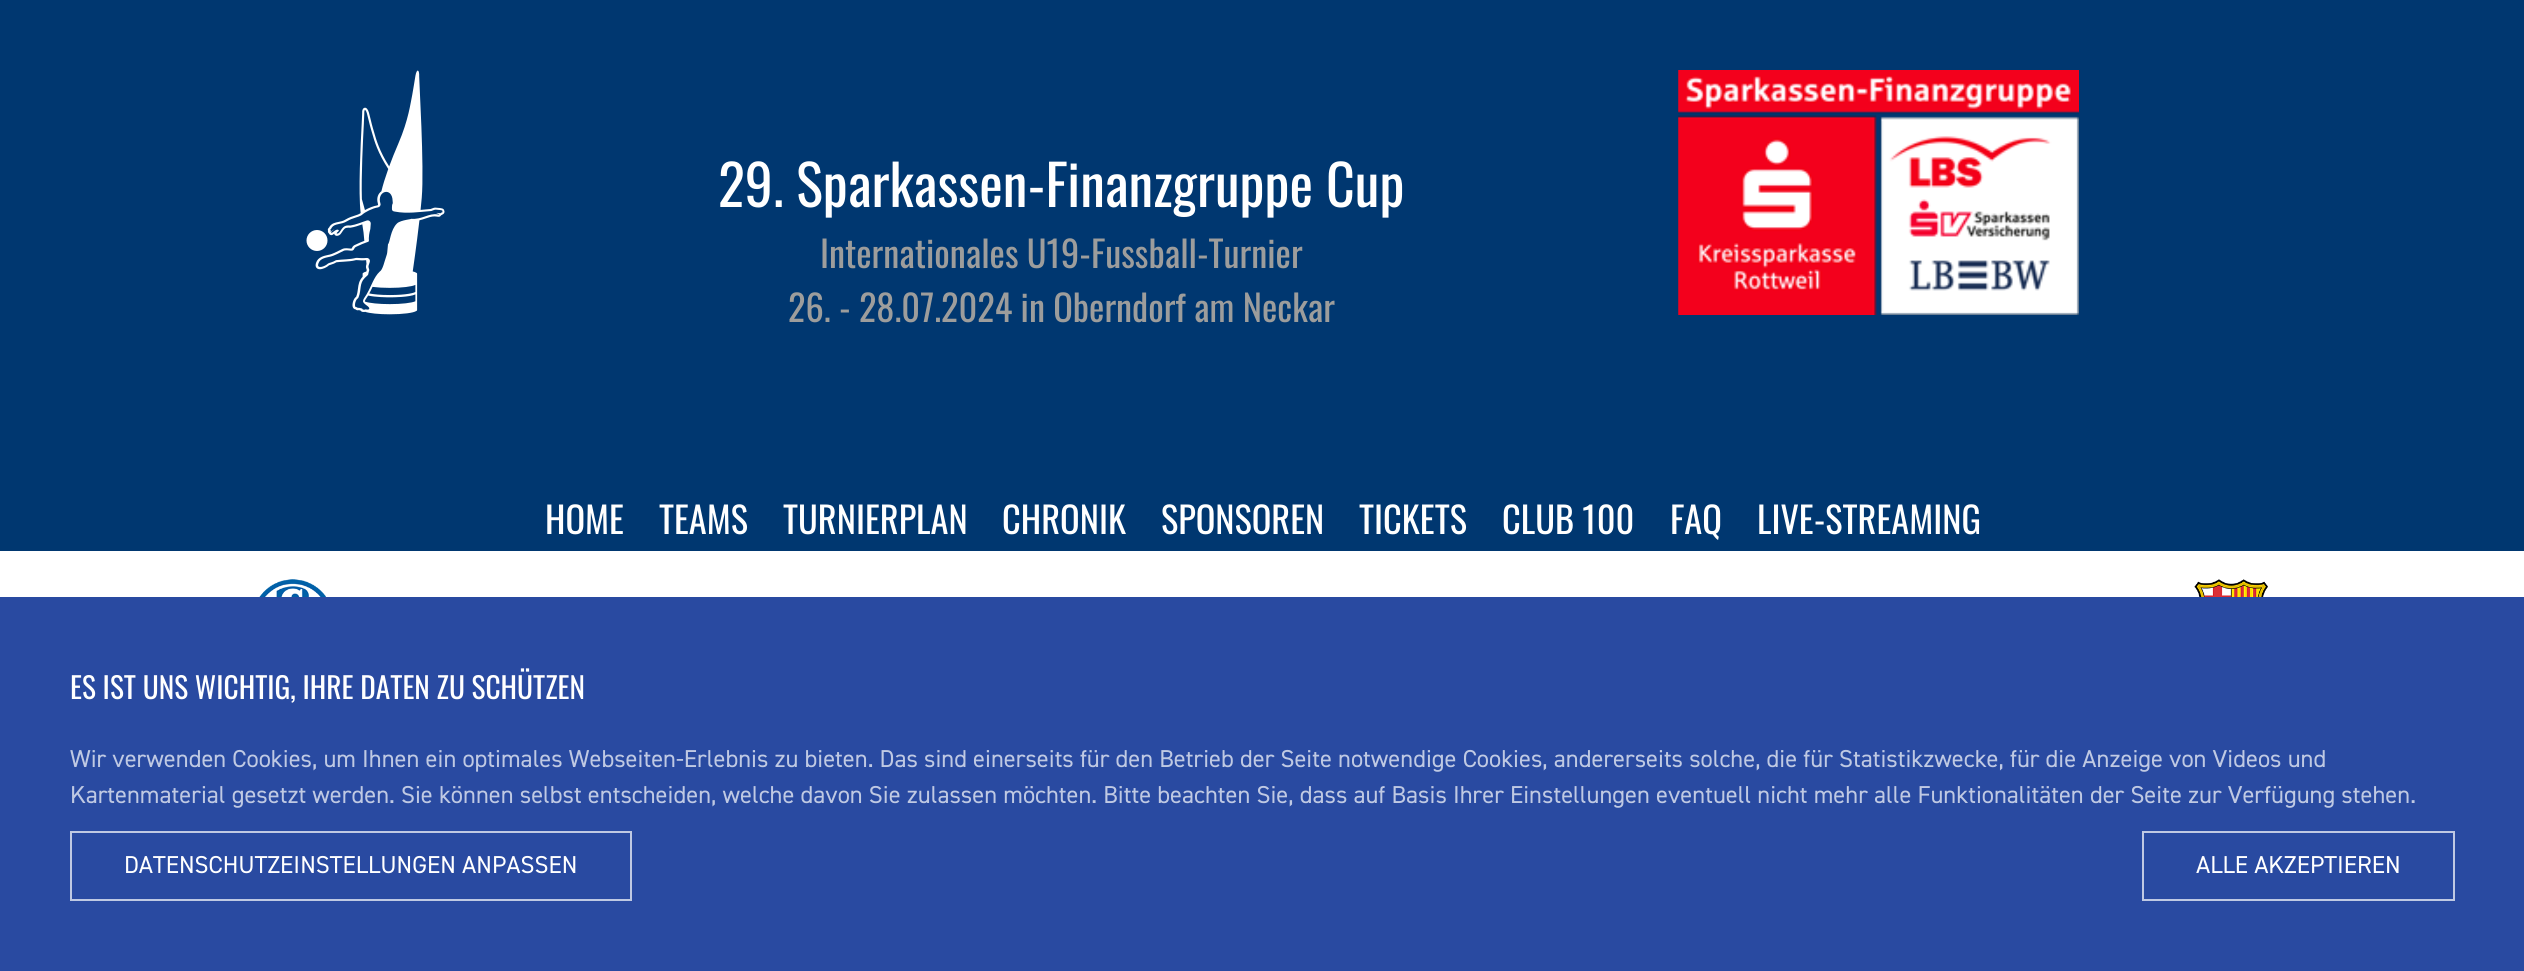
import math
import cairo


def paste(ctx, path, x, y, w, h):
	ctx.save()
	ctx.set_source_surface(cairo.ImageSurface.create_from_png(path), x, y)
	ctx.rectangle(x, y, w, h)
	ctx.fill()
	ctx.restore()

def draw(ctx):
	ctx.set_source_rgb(1, 1, 1)
	ctx.paint()
	ctx.set_source_rgb(0, 0.216, 0.439)
	ctx.rectangle(0, 0, 2524, 551)
	ctx.fill()
	paste(ctx, 'media/1.png', 306, 70, 139, 245)
	ctx.select_font_face('Oswald')
	ctx.set_font_size(56)
	ctx.set_source_rgb(1, 1, 1)
	ctx.move_to(718, 207)
	ctx.show_text('29. Sparkassen-Finanzgruppe Cup')
	ctx.set_font_size(36.4)
	ctx.set_source_rgb(0.616, 0.616, 0.612)
	ctx.move_to(820, 268)
	ctx.show_text('Internationales U19-Fussball-Turnier')
	ctx.move_to(788, 322)
	ctx.show_text('26. - 28.07.2024 in Oberndorf am Neckar')
	paste(ctx, 'media/2.png', 1678, 70, 401, 245)
	ctx.set_source_rgb(1, 1, 1)
	for x, y, s in [
		(545, 534, 'HOME'),
		(659, 534, 'TEAMS'),
		(783, 534, 'TURNIERPLAN'),
		(1002, 534, 'CHRONIK'),
		(1161, 534, 'SPONSOREN'),
		(1359, 534, 'TICKETS'),
		(1502, 534, 'CLUB 100'),
		(1670, 534, 'FAQ'),
		(1757, 534, 'LIVE-STREAMING'),
	]:
		ctx.move_to(x, y)
		ctx.show_text(s)
	paste(ctx, 'media/3.png', 259, 579, 67, 18)
	paste(ctx, 'media/4.png', 2194, 579, 74, 18)
	ctx.set_source_rgb(0.161, 0.29, 0.631)
	ctx.rectangle(0, 597, 2524, 374)
	ctx.fill()
	ctx.set_font_size(29.4)
	ctx.set_source_rgb(1, 1, 1)
	ctx.move_to(70, 699)
	ctx.show_text('ES IST UNS WICHTIG, IHRE DATEN ZU SCHÜTZEN')
	ctx.select_font_face('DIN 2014')
	ctx.set_font_size(24.5)
	ctx.set_source_rgb(0.749, 0.788, 0.89)
	ctx.move_to(70, 767)
	ctx.show_text('Wir verwenden Cookies, um Ihnen ein optimales Webseiten-Erlebnis zu bieten. Das sind einerseits für den Betrieb der Seite notwendige Cookies, andererseits solche, die für Statistikzwecke, für die Anzeige von Videos und')
	ctx.move_to(70, 803)
	ctx.show_text('Kartenmaterial gesetzt werden. Sie können selbst entscheiden, welche davon Sie zulassen möchten. Bitte beachten Sie, dass auf Basis Ihrer Einstellungen eventuell nicht mehr alle Funktionalitäten der Seite zur Verfügung stehen.')
	ctx.rectangle(71, 832, 560, 68)
	ctx.stroke()
	ctx.set_source_rgb(1, 1, 1)
	ctx.move_to(124, 873)
	ctx.show_text('DATENSCHUTZEINSTELLUNGEN ANPASSEN')
	ctx.rectangle(2143, 832, 311, 68)
	ctx.set_source_rgb(0.749, 0.788, 0.89)
	ctx.stroke()
	ctx.set_source_rgb(1, 1, 1)
	ctx.move_to(2196, 873)
	ctx.show_text('ALLE AKZEPTIEREN')


surface = cairo.ImageSurface(cairo.FORMAT_RGB24, 2524, 971)
ctx = cairo.Context(surface)
options = cairo.FontOptions()
options.set_hint_metrics(cairo.HINT_METRICS_OFF)
options.set_hint_style(cairo.HINT_STYLE_NONE)
ctx.set_font_options(options)
ctx.set_miter_limit(4)
draw(ctx)
surface.write_to_png('image.png')
